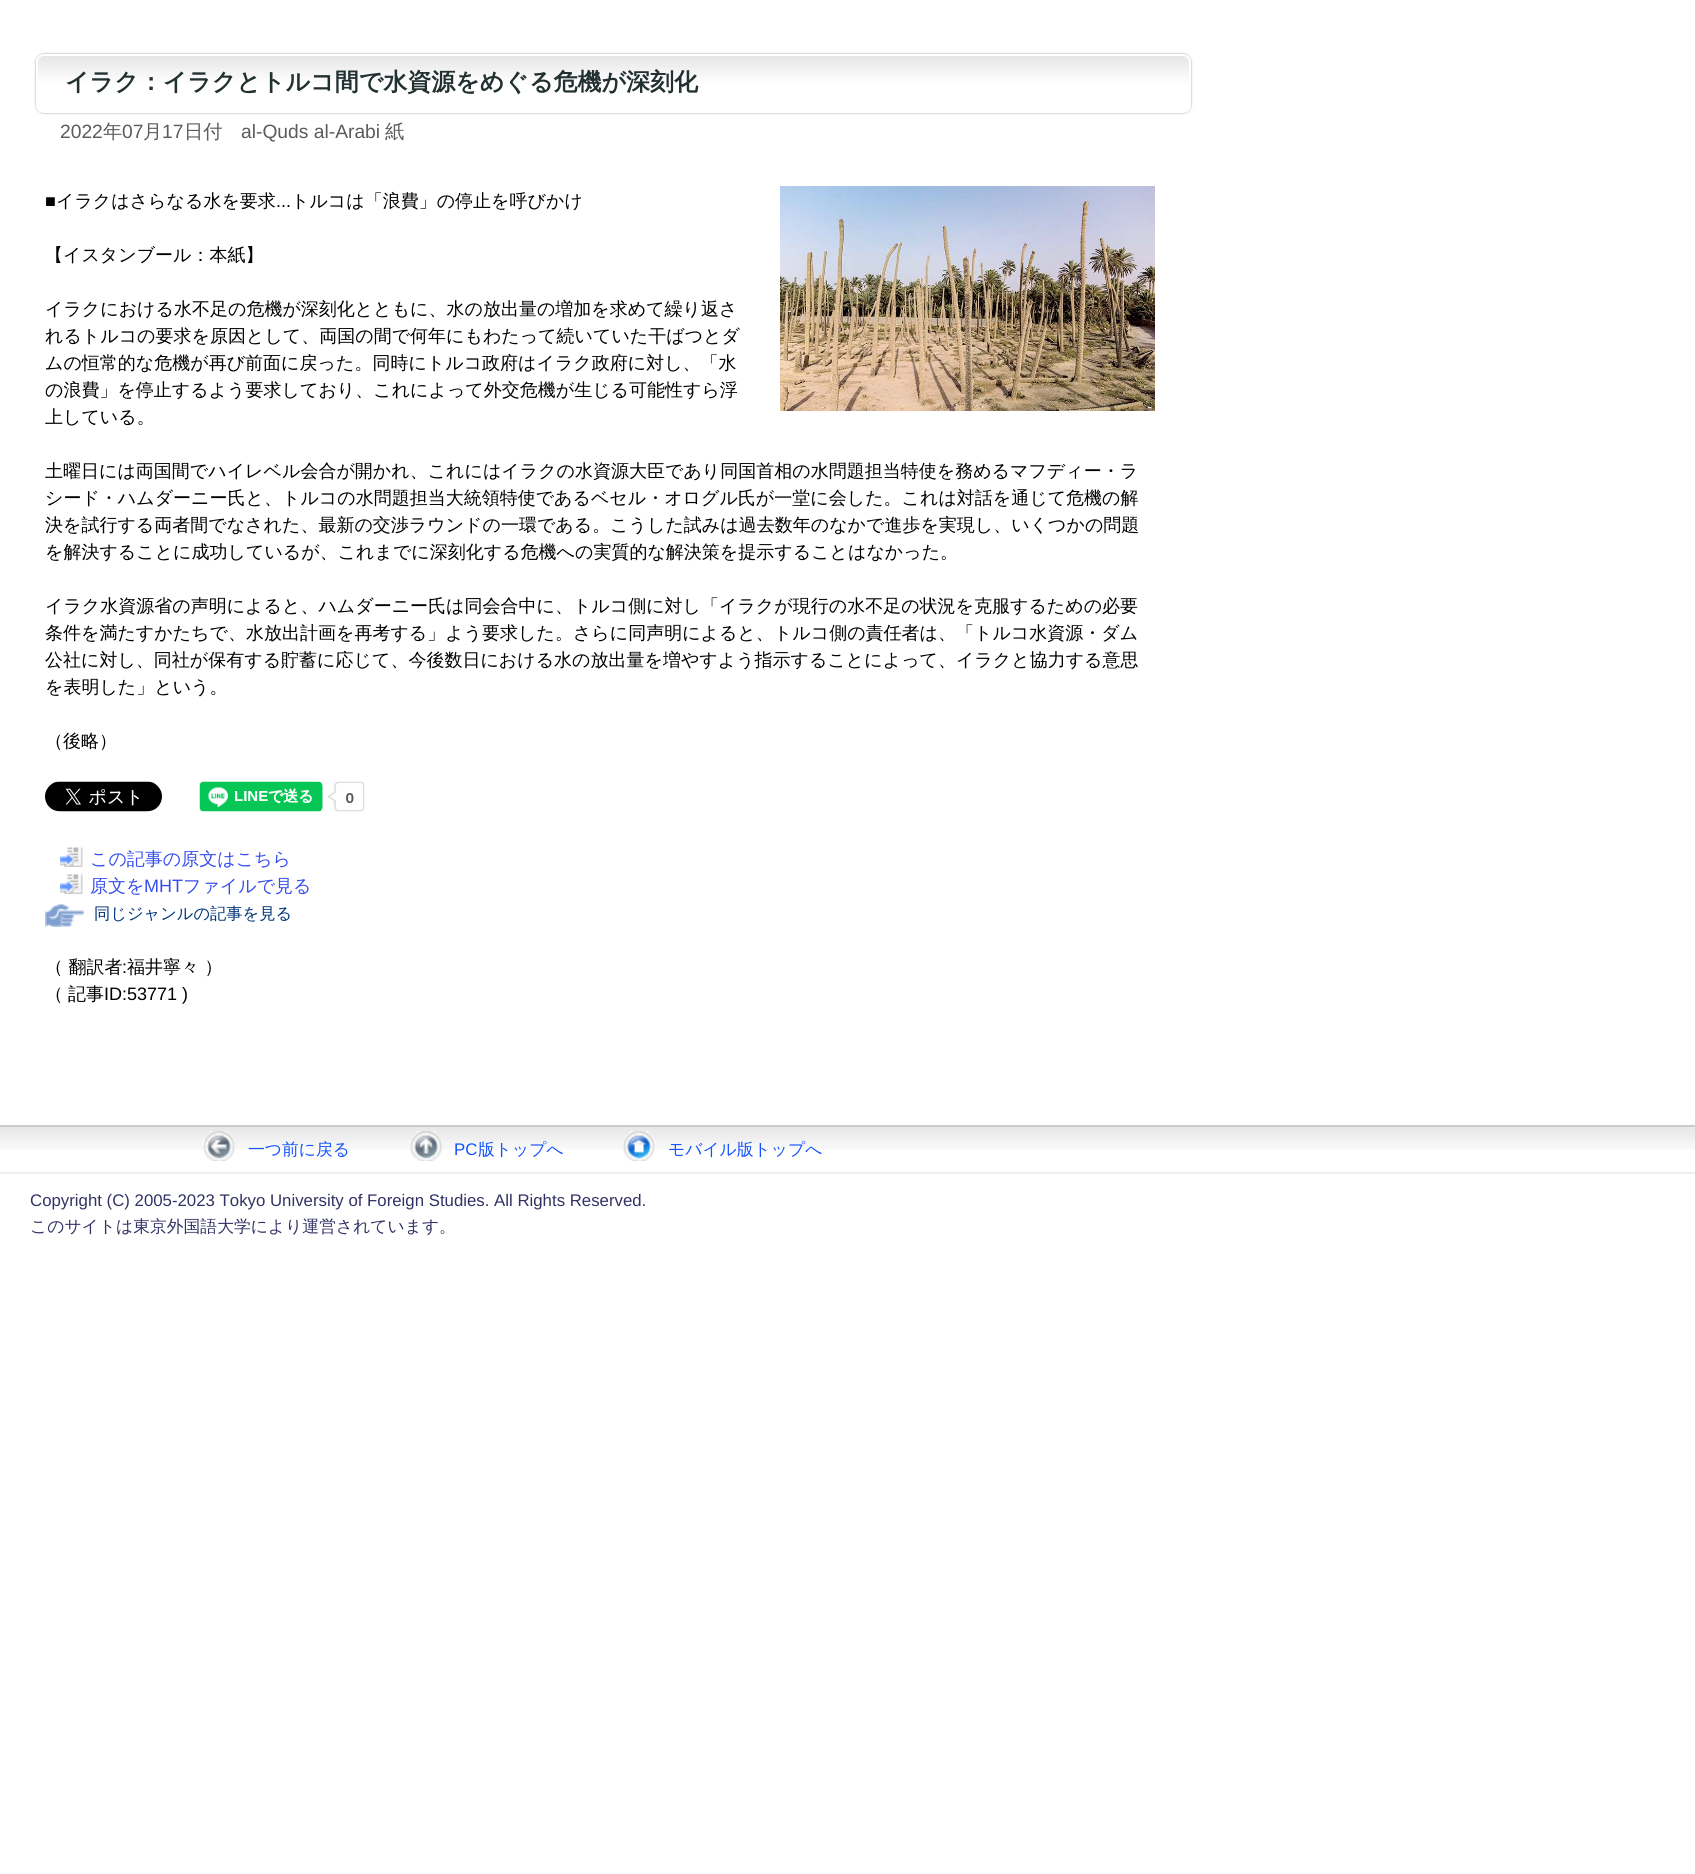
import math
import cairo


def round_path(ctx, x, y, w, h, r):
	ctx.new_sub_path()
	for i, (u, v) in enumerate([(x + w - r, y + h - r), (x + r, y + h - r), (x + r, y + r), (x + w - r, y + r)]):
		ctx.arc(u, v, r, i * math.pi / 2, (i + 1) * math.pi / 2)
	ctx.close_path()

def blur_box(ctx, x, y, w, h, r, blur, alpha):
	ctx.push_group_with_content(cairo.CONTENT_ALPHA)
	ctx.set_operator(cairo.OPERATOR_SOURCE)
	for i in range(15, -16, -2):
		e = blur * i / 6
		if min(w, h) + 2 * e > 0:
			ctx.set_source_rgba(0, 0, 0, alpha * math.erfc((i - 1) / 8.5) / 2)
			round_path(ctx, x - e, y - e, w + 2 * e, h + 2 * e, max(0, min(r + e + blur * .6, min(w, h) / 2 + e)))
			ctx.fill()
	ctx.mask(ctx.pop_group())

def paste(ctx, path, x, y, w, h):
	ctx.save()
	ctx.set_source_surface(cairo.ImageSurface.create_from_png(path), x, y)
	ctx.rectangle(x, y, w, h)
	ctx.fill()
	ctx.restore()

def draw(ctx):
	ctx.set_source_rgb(1, 1, 1)
	ctx.paint()
	ctx.set_source_rgb(0.6, 0.6, 0.6)
	blur_box(ctx, 36, 54, 1155, 59, 8, 1, 1)
	paste(ctx, 'media/1.png', 36, 55, 1155, 58)
	round_path(ctx, 37, 55, 1153, 57, 7)
	ctx.set_source_rgb(1, 1, 1)
	ctx.stroke()
	ctx.select_font_face('WenQuanYi Zen Hei', cairo.FONT_SLANT_NORMAL, cairo.FONT_WEIGHT_BOLD)
	ctx.set_font_size(24)
	ctx.set_source_rgb(0.133, 0.188, 0.188)
	ctx.move_to(65, 90)
	ctx.show_text('イラク：イラクとトルコ間で水資源をめぐる危機が深刻化')
	ctx.select_font_face('Liberation Sans')
	ctx.set_font_size(19.25)
	ctx.set_source_rgb(0.357, 0.357, 0.357)
	ctx.move_to(60, 138)
	ctx.show_text('2022')
	ctx.select_font_face('WenQuanYi Zen Hei Medium')
	ctx.move_to(103, 138)
	ctx.show_text('年')
	ctx.select_font_face('Liberation Sans')
	ctx.move_to(122, 138)
	ctx.show_text('07')
	ctx.select_font_face('WenQuanYi Zen Hei Medium')
	ctx.move_to(143, 138)
	ctx.show_text('月')
	ctx.select_font_face('Liberation Sans')
	ctx.move_to(162, 138)
	ctx.show_text('17')
	ctx.select_font_face('WenQuanYi Zen Hei Medium')
	ctx.move_to(184, 138)
	ctx.show_text('日付')
	ctx.select_font_face('Liberation Sans')
	ctx.move_to(241, 138)
	ctx.show_text('al-Quds al-Arabi')
	ctx.select_font_face('WenQuanYi Zen Hei Medium')
	ctx.move_to(385, 138)
	ctx.show_text('紙')
	ctx.select_font_face('Liberation Sans')
	ctx.set_font_size(18)
	ctx.set_source_rgb(0, 0, 0)
	ctx.move_to(45, 207)
	ctx.show_text('■')
	ctx.select_font_face('WenQuanYi Zen Hei Medium')
	ctx.move_to(56, 207)
	ctx.show_text('イラクはさらなる水を要求')
	ctx.select_font_face('Liberation Sans')
	ctx.move_to(276, 207)
	ctx.show_text('...')
	ctx.select_font_face('WenQuanYi Zen Hei Medium')
	ctx.move_to(291, 207)
	ctx.show_text('トルコは「浪費」の停止を呼びかけ')
	paste(ctx, 'media/2.png', 780, 186, 375, 225)
	for x, y, s in [
		(45, 261, '【イスタンブール：本紙】'),
		(45, 315, 'イラクにおける水不足の危機が深刻化とともに、水の放出量の増加を求めて繰り返さ'),
		(45, 342, 'れるトルコの要求を原因として、両国の間で何年にもわたって続いていた干ばつとダ'),
		(45, 369, 'ムの恒常的な危機が再び前面に戻った。同時にトルコ政府はイラク政府に対し、「水'),
		(45, 396, 'の浪費」を停止するよう要求しており、これによって外交危機が生じる可能性すら浮'),
		(45, 423, '上している。'),
		(45, 477, '土曜日には両国間でハイレベル会合が開かれ、これにはイラクの水資源大臣であり同国首相の水問題担当特使を務めるマフディー・ラ'),
		(45, 504, 'シード・ハムダーニー氏と、トルコの水問題担当大統領特使であるベセル・オログル氏が一堂に会した。これは対話を通じて危機の解'),
		(45, 531, '決を試行する両者間でなされた、最新の交渉ラウンドの一環である。こうした試みは過去数年のなかで進歩を実現し、いくつかの問題'),
		(45, 558, 'を解決することに成功しているが、これまでに深刻化する危機への実質的な解決策を提示することはなかった。'),
		(45, 612, 'イラク水資源省の声明によると、ハムダーニー氏は同会合中に、トルコ側に対し「イラクが現行の水不足の状況を克服するための必要'),
		(45, 639, '条件を満たすかたちで、水放出計画を再考する」よう要求した。さらに同声明によると、トルコ側の責任者は、「トルコ水資源・ダム'),
		(45, 666, '公社に対し、同社が保有する貯蓄に応じて、今後数日における水の放出量を増やすよう指示することによって、イラクと協力する意思'),
		(45, 693, 'を表明した」という。'),
		(45, 747, '（後略）'),
	]:
		ctx.move_to(x, y)
		ctx.show_text(s)
	paste(ctx, 'media/3.png', 45, 781, 117, 31)
	paste(ctx, 'media/4.png', 199, 781, 166, 31)
	paste(ctx, 'media/5.png', 60, 846, 23, 21)
	ctx.set_source_rgb(0.216, 0.306, 0.925)
	ctx.move_to(90, 865)
	ctx.show_text('この記事の原文はこちら')
	paste(ctx, 'media/5.png', 60, 873, 23, 21)
	ctx.move_to(90, 892)
	ctx.show_text('原文を')
	ctx.select_font_face('Liberation Sans')
	ctx.move_to(144, 892)
	ctx.show_text('MHT')
	ctx.select_font_face('WenQuanYi Zen Hei Medium')
	ctx.move_to(183, 892)
	ctx.show_text('ファイルで見る')
	paste(ctx, 'media/6.png', 45, 904, 39, 23)
	ctx.set_font_size(16.25)
	ctx.set_source_rgb(0, 0.196, 0.463)
	ctx.move_to(94, 919)
	ctx.show_text('同じジャンルの記事を見る')
	ctx.set_font_size(18)
	ctx.set_source_rgb(0, 0, 0)
	ctx.move_to(45, 973)
	ctx.show_text('（ 翻訳者')
	ctx.select_font_face('Liberation Sans')
	ctx.move_to(122, 973)
	ctx.show_text(':')
	ctx.select_font_face('WenQuanYi Zen Hei Medium')
	for x, y, s in [
		(127, 973, '福井寧々 ）'),
		(45, 1000, '（'),
		(68, 1000, '記事'),
	]:
		ctx.move_to(x, y)
		ctx.show_text(s)
	ctx.select_font_face('Liberation Sans')
	ctx.move_to(104, 1000)
	ctx.show_text('ID:53771 )')
	paste(ctx, 'media/7.png', 0, 1127, 1695, 23)
	ctx.set_source_rgb(0.8, 0.8, 0.8)
	ctx.rectangle(0, 1125, 1695, 2)
	ctx.fill()
	ctx.set_source_rgb(0.933, 0.933, 0.933)
	ctx.rectangle(0, 1172, 1695, 2)
	ctx.fill()
	paste(ctx, 'media/8.png', 202, 1131, 34, 30)
	ctx.select_font_face('WenQuanYi Zen Hei Medium')
	ctx.set_font_size(16.8)
	ctx.set_source_rgb(0.075, 0.325, 1)
	ctx.move_to(248, 1155)
	ctx.show_text('一つ前に戻る')
	paste(ctx, 'media/9.png', 409, 1131, 34, 30)
	ctx.select_font_face('Liberation Sans')
	ctx.move_to(454, 1155)
	ctx.show_text('PC')
	ctx.select_font_face('WenQuanYi Zen Hei Medium')
	ctx.move_to(478, 1155)
	ctx.show_text('版トップへ')
	paste(ctx, 'media/10.png', 622, 1131, 34, 30)
	ctx.move_to(668, 1155)
	ctx.show_text('モバイル版トップへ')
	ctx.select_font_face('Liberation Sans')
	ctx.set_source_rgb(0.196, 0.196, 0.392)
	ctx.move_to(30, 1206)
	ctx.show_text('Copyright (C) 2005-2023 Tokyo University of Foreign Studies. All Rights Reserved.')
	ctx.select_font_face('WenQuanYi Zen Hei Medium')
	ctx.move_to(30, 1232)
	ctx.show_text('このサイトは東京外国語大学により運営されています。')


surface = cairo.ImageSurface(cairo.FORMAT_RGB24, 1695, 1874)
ctx = cairo.Context(surface)
options = cairo.FontOptions()
options.set_hint_metrics(cairo.HINT_METRICS_OFF)
options.set_hint_style(cairo.HINT_STYLE_NONE)
ctx.set_font_options(options)
ctx.set_miter_limit(4)
draw(ctx)
surface.write_to_png('image.png')
